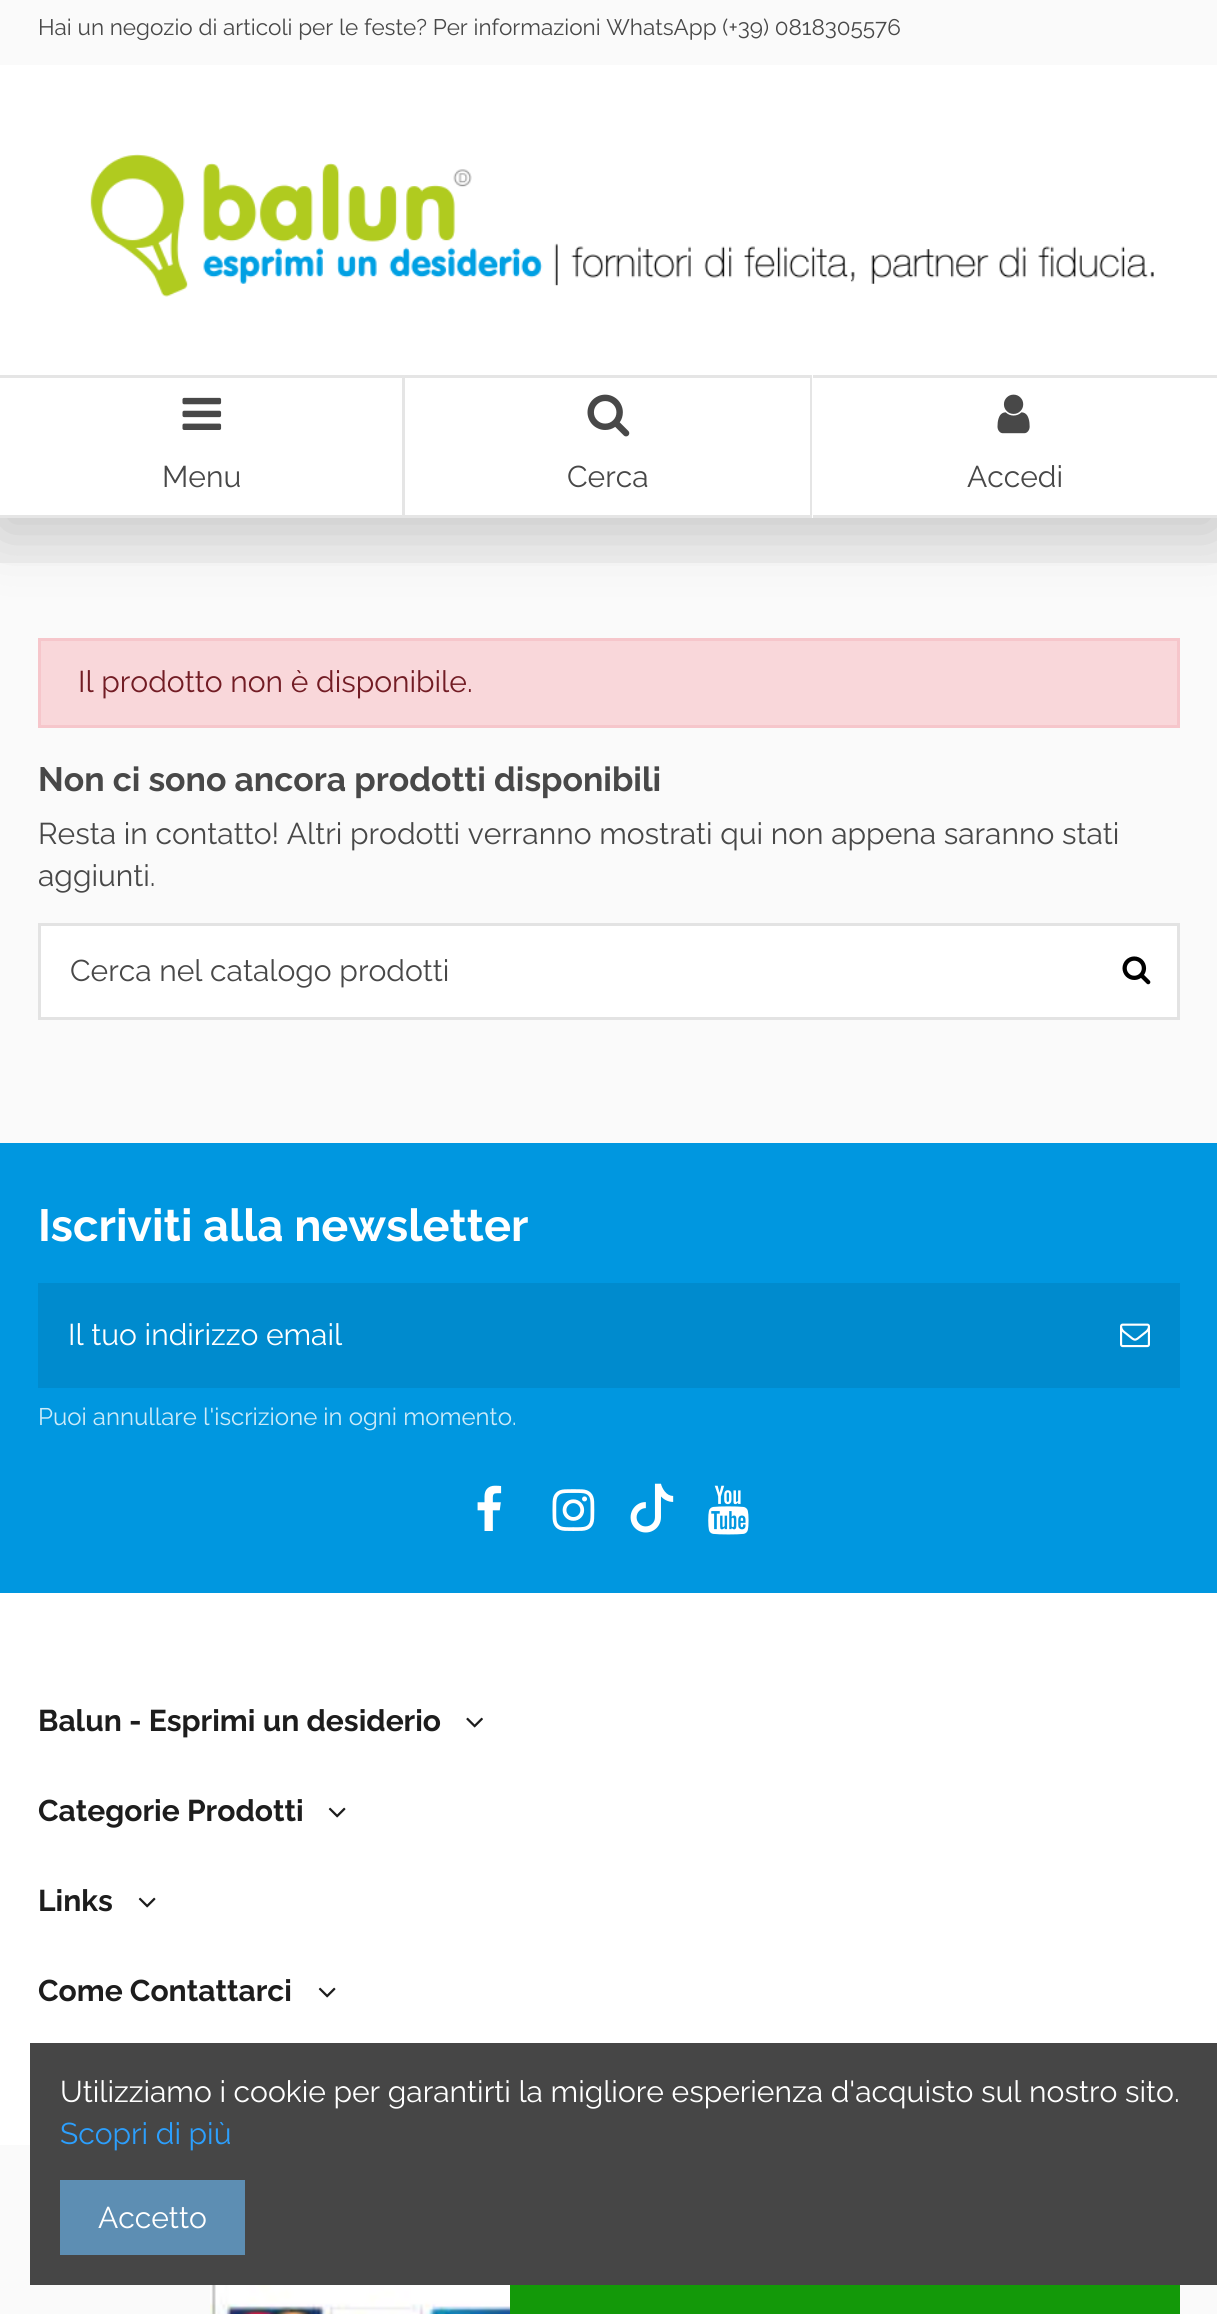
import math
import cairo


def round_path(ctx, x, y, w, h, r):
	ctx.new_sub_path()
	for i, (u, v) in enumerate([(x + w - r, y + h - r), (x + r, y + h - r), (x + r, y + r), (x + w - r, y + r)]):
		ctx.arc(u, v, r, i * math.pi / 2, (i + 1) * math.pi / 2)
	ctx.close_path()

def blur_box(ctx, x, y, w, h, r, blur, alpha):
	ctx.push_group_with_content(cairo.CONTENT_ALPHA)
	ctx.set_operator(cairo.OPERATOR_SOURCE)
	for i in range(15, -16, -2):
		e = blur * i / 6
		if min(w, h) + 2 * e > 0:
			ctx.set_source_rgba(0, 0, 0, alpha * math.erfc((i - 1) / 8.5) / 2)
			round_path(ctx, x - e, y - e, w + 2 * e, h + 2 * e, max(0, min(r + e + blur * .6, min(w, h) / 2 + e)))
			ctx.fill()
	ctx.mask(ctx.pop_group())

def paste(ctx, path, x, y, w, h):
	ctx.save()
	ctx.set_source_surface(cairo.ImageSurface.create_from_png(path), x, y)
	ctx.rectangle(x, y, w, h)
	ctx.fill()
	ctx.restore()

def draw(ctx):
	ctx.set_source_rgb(0.98, 0.98, 0.98)
	ctx.paint()
	ctx.set_source_rgb(0.941, 0.941, 0.941)
	ctx.rectangle(0, 518, 1217, 45)
	ctx.fill()
	ctx.set_source_rgb(0, 0, 0)
	blur_box(ctx, 0, 5, 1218, 525, 0, 31, 0.18)
	ctx.set_source_rgb(1, 1, 1)
	ctx.rectangle(0, 65, 1217, 453)
	ctx.fill()
	ctx.set_source_rgb(0.98, 0.98, 0.98)
	ctx.rectangle(0, 0, 1217, 65)
	ctx.fill()
	ctx.select_font_face('Raleway')
	ctx.set_font_size(22.5)
	ctx.set_source_rgb(0.282, 0.282, 0.282)
	ctx.move_to(38, 35)
	ctx.show_text('Hai un negozio di articoli per le feste? Per informazioni WhatsApp (+39) 0818305576')
	paste(ctx, 'media/1.png', 90, 154, 1064, 143)
	ctx.set_source_rgb(0.898, 0.898, 0.898)
	ctx.new_path()
	ctx.move_to(0, 375)
	ctx.line_to(405, 375)
	ctx.line_to(402, 378)
	ctx.line_to(0, 378)
	ctx.close_path()
	ctx.fill()
	ctx.set_source_rgba(0.082, 0.082, 0.082, 0.11)
	ctx.new_path()
	ctx.move_to(405, 375)
	ctx.line_to(405, 518)
	ctx.line_to(402, 515)
	ctx.line_to(402, 378)
	ctx.close_path()
	ctx.fill()
	ctx.new_path()
	ctx.move_to(405, 518)
	ctx.line_to(0, 518)
	ctx.line_to(0, 515)
	ctx.line_to(402, 515)
	ctx.close_path()
	ctx.fill()
	paste(ctx, 'media/2.png', 182, 397, 40, 33)
	ctx.set_font_size(30)
	ctx.set_source_rgb(0.282, 0.282, 0.282)
	ctx.move_to(162, 487)
	ctx.show_text('Menu')
	ctx.set_source_rgb(0.898, 0.898, 0.898)
	ctx.new_path()
	ctx.move_to(405, 375)
	ctx.line_to(812, 375)
	ctx.line_to(810, 378)
	ctx.line_to(405, 378)
	ctx.close_path()
	ctx.fill()
	ctx.set_source_rgba(0.082, 0.082, 0.082, 0.11)
	ctx.new_path()
	ctx.move_to(812, 375)
	ctx.line_to(812, 518)
	ctx.line_to(810, 515)
	ctx.line_to(810, 378)
	ctx.close_path()
	ctx.fill()
	ctx.new_path()
	ctx.move_to(812, 518)
	ctx.line_to(405, 518)
	ctx.line_to(405, 515)
	ctx.line_to(810, 515)
	ctx.close_path()
	ctx.fill()
	paste(ctx, 'media/3.png', 587, 394, 43, 43)
	ctx.set_source_rgb(0.282, 0.282, 0.282)
	ctx.move_to(567, 487)
	ctx.show_text('Cerca')
	ctx.set_source_rgb(0.898, 0.898, 0.898)
	ctx.rectangle(813, 375, 404, 3)
	ctx.fill()
	ctx.rectangle(813, 515, 404, 3)
	ctx.fill()
	paste(ctx, 'media/4.png', 997, 394, 33, 40)
	ctx.set_source_rgb(0.282, 0.282, 0.282)
	ctx.move_to(967, 487)
	ctx.show_text('Accedi')
	ctx.set_source_rgb(0.973, 0.843, 0.855)
	ctx.rectangle(39.5, 639.5, 1139, 87)
	ctx.fill_preserve()
	ctx.set_source_rgb(0.961, 0.776, 0.796)
	ctx.set_line_width(3)
	ctx.stroke()
	ctx.set_source_rgb(0.447, 0.11, 0.141)
	ctx.move_to(78, 692)
	ctx.show_text('Il prodotto non è disponibile.')
	ctx.select_font_face('Raleway', cairo.FONT_SLANT_NORMAL, cairo.FONT_WEIGHT_BOLD)
	ctx.set_font_size(33.75)
	ctx.set_source_rgb(0.282, 0.282, 0.282)
	ctx.move_to(38, 791)
	ctx.show_text('Non ci sono ancora prodotti disponibili')
	ctx.select_font_face('Raleway')
	ctx.set_font_size(30)
	ctx.move_to(38, 844)
	ctx.show_text('Resta in contatto! Altri prodotti verranno mostrati qui non appena saranno stati')
	ctx.move_to(38, 886)
	ctx.show_text('aggiunti.')
	ctx.set_source_rgb(1, 1, 1)
	ctx.rectangle(39.5, 924.5, 1139, 94)
	ctx.fill_preserve()
	ctx.set_source_rgb(0.89, 0.89, 0.89)
	ctx.stroke()
	ctx.set_source_rgb(0.282, 0.282, 0.282)
	ctx.move_to(70, 981)
	ctx.show_text('Cerca nel catalogo prodotti')
	paste(ctx, 'media/5.png', 1122, 956, 29, 29)
	ctx.set_source_rgb(1, 1, 1)
	ctx.rectangle(0, 1593, 1217, 552)
	ctx.fill()
	ctx.set_source_rgb(0, 0.592, 0.878)
	ctx.rectangle(0, 1143, 1217, 450)
	ctx.fill()
	ctx.select_font_face('Raleway', cairo.FONT_SLANT_NORMAL, cairo.FONT_WEIGHT_BOLD)
	ctx.set_font_size(45)
	ctx.set_source_rgb(1, 1, 1)
	ctx.move_to(38, 1241)
	ctx.show_text('Iscriviti alla newsletter')
	ctx.set_source_rgb(0, 0.545, 0.808)
	ctx.rectangle(38, 1283, 1142, 105)
	ctx.fill()
	ctx.select_font_face('Raleway')
	ctx.set_font_size(30)
	ctx.set_source_rgb(1, 1, 1)
	ctx.move_to(68, 1345)
	ctx.show_text('Il tuo indirizzo email')
	paste(ctx, 'media/6.png', 1120, 1323, 30, 25)
	ctx.set_font_size(24)
	ctx.set_source_rgb(0.8, 0.918, 0.976)
	ctx.move_to(38, 1425)
	ctx.show_text('Puoi annullare l\'iscrizione in ogni momento.')
	paste(ctx, 'media/7.png', 477, 1485, 25, 46)
	paste(ctx, 'media/8.png', 552, 1489, 43, 42)
	paste(ctx, 'media/9.png', 630, 1483, 44, 50)
	paste(ctx, 'media/10.png', 708, 1485, 41, 50)
	ctx.select_font_face('Raleway', cairo.FONT_SLANT_NORMAL, cairo.FONT_WEIGHT_BOLD)
	ctx.set_font_size(30)
	ctx.set_source_rgb(0.114, 0.114, 0.114)
	ctx.move_to(38, 1731)
	ctx.show_text('Balun - Esprimi un desiderio')
	paste(ctx, 'media/11.png', 466, 1717, 17, 11)
	ctx.move_to(38, 1821)
	ctx.show_text('Categorie Prodotti')
	paste(ctx, 'media/12.png', 328, 1807, 18, 11)
	ctx.move_to(38, 1911)
	ctx.show_text('Links')
	paste(ctx, 'media/12.png', 138, 1897, 18, 11)
	ctx.move_to(38, 2001)
	ctx.show_text('Come Contattarci')
	paste(ctx, 'media/12.png', 318, 1987, 18, 11)
	ctx.set_source_rgb(0.075, 0.6, 0.039)
	ctx.rectangle(510, 2285, 670, 29)
	ctx.fill()
	paste(ctx, 'media/13.png', 210, 2285, 300, 29)
	ctx.set_source_rgb(0.275, 0.275, 0.275)
	ctx.rectangle(30, 2043, 1187, 242)
	ctx.fill()
	ctx.select_font_face('Raleway')
	ctx.set_source_rgb(1, 1, 1)
	ctx.move_to(60, 2102)
	ctx.show_text('Utilizziamo i cookie per garantirti la migliore esperienza d\'acquisto sul nostro sito.')
	ctx.set_source_rgb(0.173, 0.624, 0.992)
	ctx.move_to(60, 2144)
	ctx.show_text('Scopri di più')
	ctx.set_source_rgb(0.365, 0.557, 0.702)
	ctx.rectangle(60, 2180, 185, 75)
	ctx.fill()
	ctx.set_source_rgb(1, 1, 1)
	ctx.move_to(98, 2228)
	ctx.show_text('Accetto')


surface = cairo.ImageSurface(cairo.FORMAT_RGB24, 1217, 2314)
ctx = cairo.Context(surface)
options = cairo.FontOptions()
options.set_hint_metrics(cairo.HINT_METRICS_OFF)
options.set_hint_style(cairo.HINT_STYLE_NONE)
ctx.set_font_options(options)
ctx.set_miter_limit(4)
draw(ctx)
surface.write_to_png('image.png')
